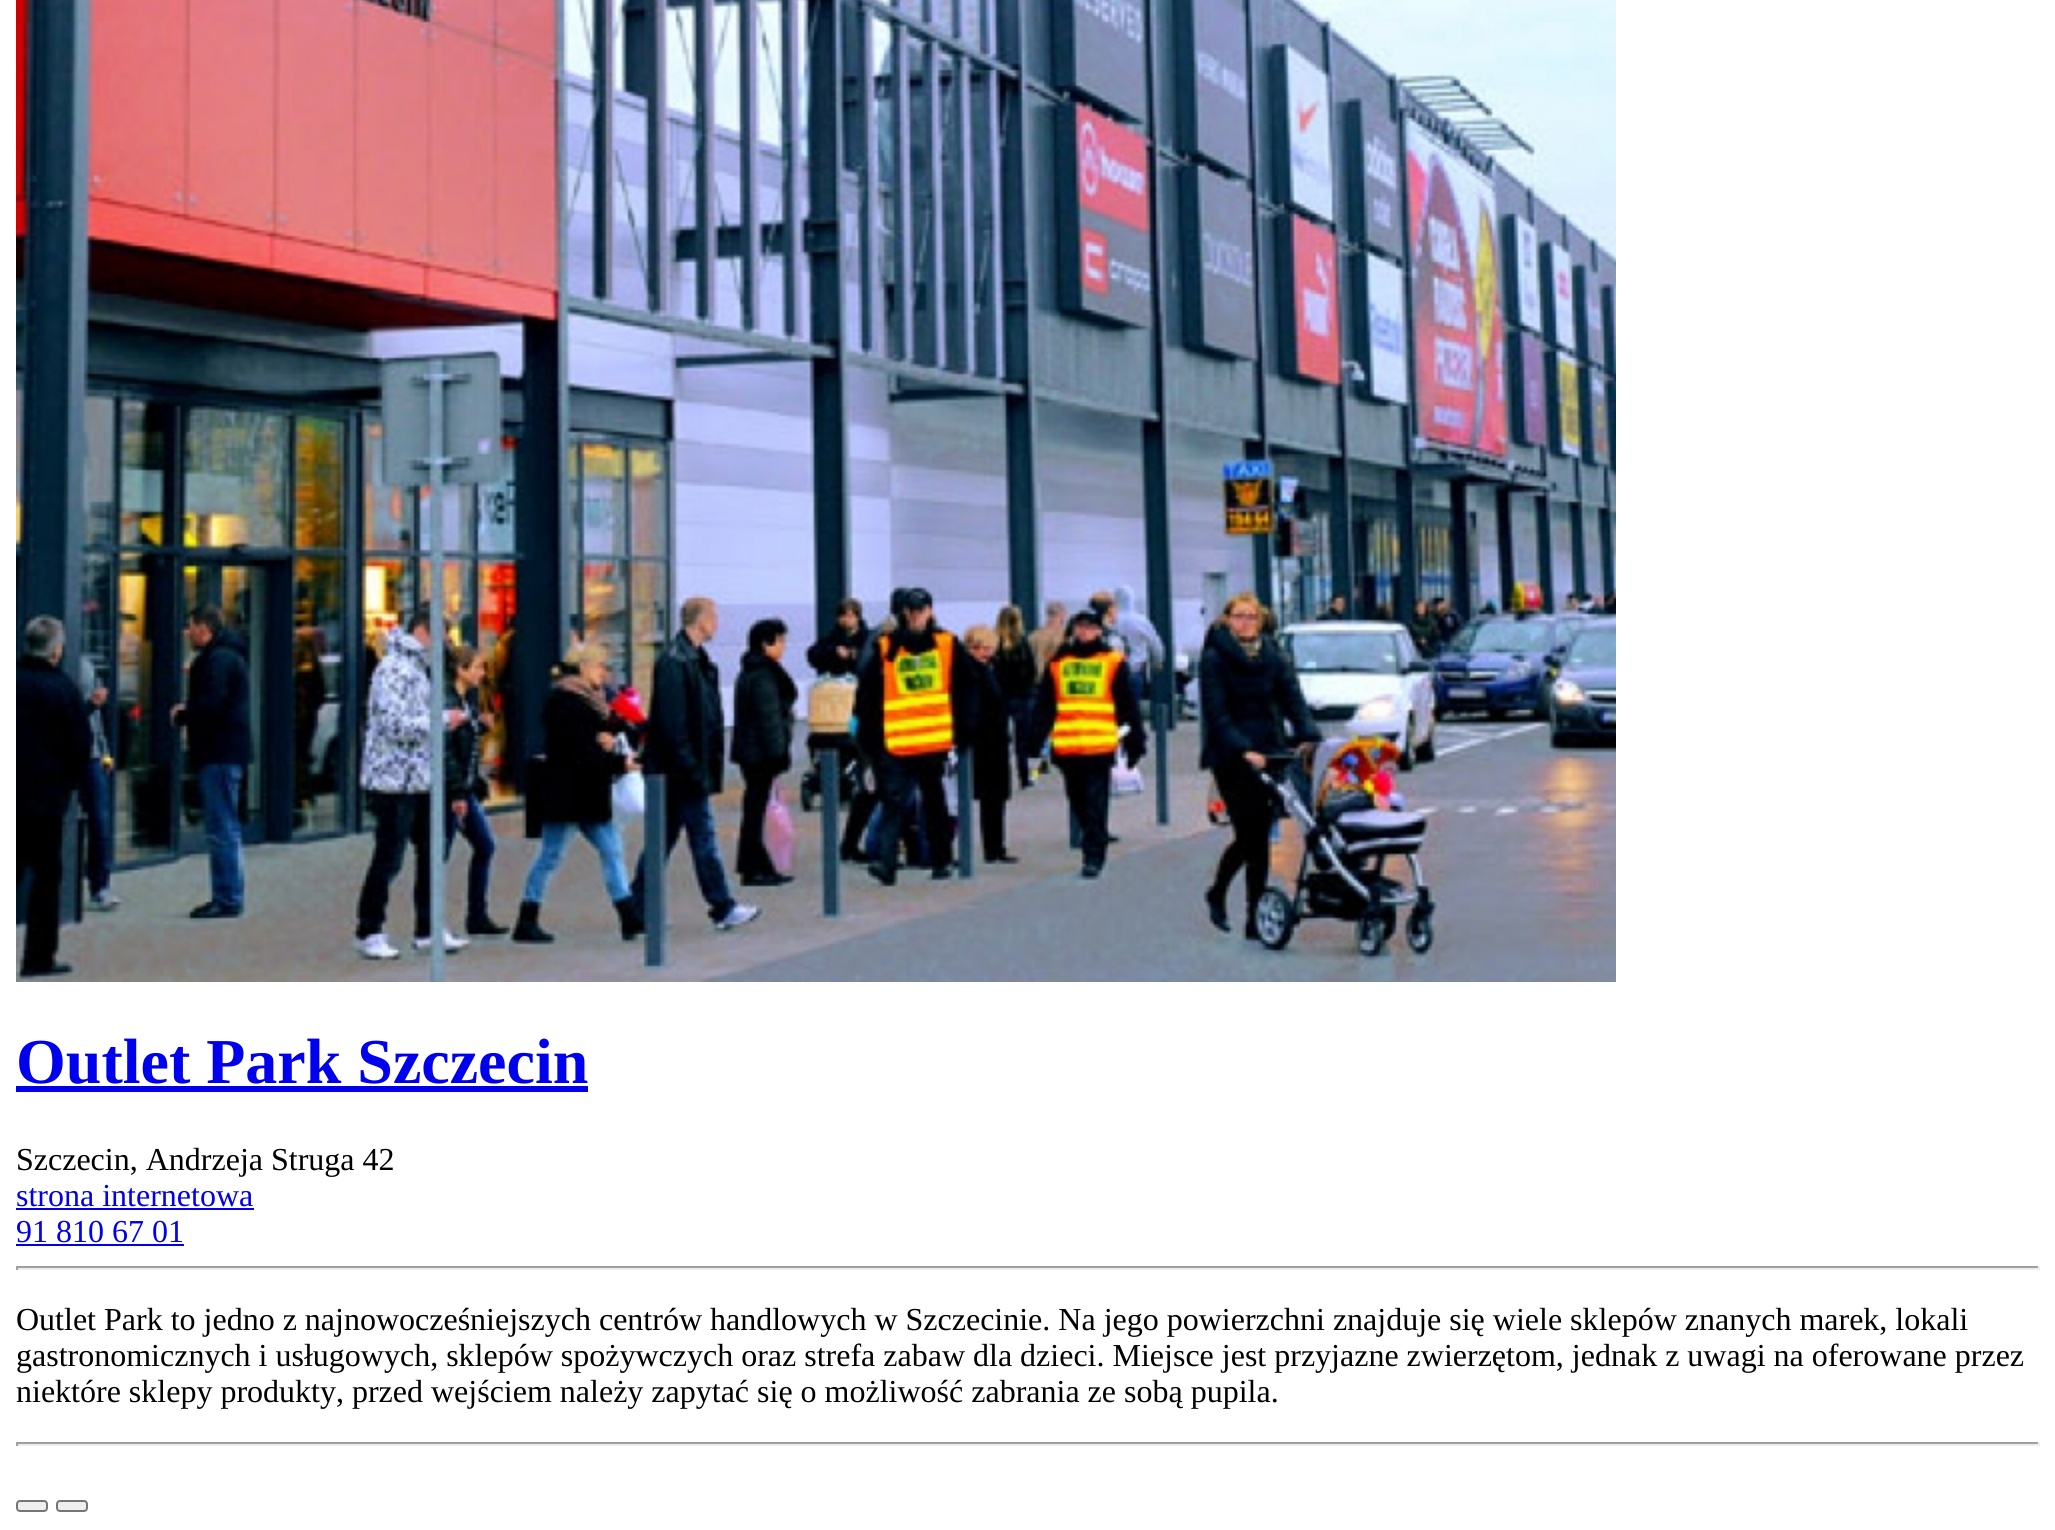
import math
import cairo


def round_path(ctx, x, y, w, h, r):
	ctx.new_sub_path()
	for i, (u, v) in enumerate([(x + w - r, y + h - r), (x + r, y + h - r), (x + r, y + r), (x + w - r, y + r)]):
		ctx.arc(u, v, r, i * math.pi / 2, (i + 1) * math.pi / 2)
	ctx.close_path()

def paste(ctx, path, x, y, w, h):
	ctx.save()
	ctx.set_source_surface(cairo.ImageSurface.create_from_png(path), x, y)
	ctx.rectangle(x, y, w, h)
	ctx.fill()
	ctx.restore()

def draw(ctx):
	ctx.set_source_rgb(1, 1, 1)
	ctx.paint()
	paste(ctx, 'media/1.png', 16, 0, 1600, 982)
	ctx.select_font_face('Liberation Serif', cairo.FONT_SLANT_NORMAL, cairo.FONT_WEIGHT_BOLD)
	ctx.set_font_size(64)
	ctx.set_source_rgb(0, 0, 0.933)
	ctx.move_to(16, 1083)
	ctx.show_text('Outlet Park Szczecin')
	ctx.rectangle(16, 1086, 572, 6)
	ctx.fill()
	ctx.select_font_face('Liberation Serif')
	ctx.set_font_size(32)
	ctx.set_source_rgb(0, 0, 0)
	ctx.move_to(16, 1170)
	ctx.show_text('Szczecin, Andrzeja Struga 42')
	ctx.set_source_rgb(0, 0, 0.933)
	ctx.move_to(16, 1206)
	ctx.show_text('strona internetowa')
	ctx.rectangle(16, 1208, 238, 2)
	ctx.fill()
	ctx.move_to(16, 1242)
	ctx.show_text('91 810 67 01')
	ctx.rectangle(16, 1244, 168, 2)
	ctx.fill()
	ctx.set_source_rgb(0.624, 0.624, 0.624)
	ctx.rectangle(16, 1266, 2024, 2)
	ctx.fill()
	ctx.set_source_rgb(0.933, 0.933, 0.933)
	ctx.rectangle(2038, 1266, 2, 4)
	ctx.rectangle(16, 1268, 2024, 2)
	ctx.fill()
	ctx.set_source_rgb(0.624, 0.624, 0.624)
	ctx.rectangle(16, 1266, 2, 4)
	ctx.fill()
	ctx.set_source_rgb(0, 0, 0)
	for x, y, s in [
		(16, 1330, 'Outlet Park to jedno z najnowocześniejszych centrów handlowych w Szczecinie. Na jego powierzchni znajduje się wiele sklepów znanych marek, lokali'),
		(16, 1366, 'gastronomicznych i usługowych, sklepów spożywczych oraz strefa zabaw dla dzieci. Miejsce jest przyjazne zwierzętom, jednak z uwagi na oferowane przez'),
		(16, 1402, 'niektóre sklepy produkty, przed wejściem należy zapytać się o możliwość zabrania ze sobą pupila.'),
	]:
		ctx.move_to(x, y)
		ctx.show_text(s)
	ctx.set_source_rgb(0.624, 0.624, 0.624)
	ctx.rectangle(16, 1442, 2024, 2)
	ctx.fill()
	ctx.set_source_rgb(0.933, 0.933, 0.933)
	ctx.rectangle(2038, 1442, 2, 4)
	ctx.rectangle(16, 1444, 2024, 2)
	ctx.fill()
	ctx.set_source_rgb(0.624, 0.624, 0.624)
	ctx.rectangle(16, 1442, 2, 4)
	ctx.fill()
	ctx.set_source_rgb(0.937, 0.937, 0.937)
	round_path(ctx, 17, 1501, 30, 10, 3)
	ctx.fill_preserve()
	ctx.set_source_rgb(0.463, 0.463, 0.463)
	ctx.stroke()
	ctx.set_source_rgb(0.937, 0.937, 0.937)
	round_path(ctx, 57, 1501, 30, 10, 3)
	ctx.fill_preserve()
	ctx.set_source_rgb(0.463, 0.463, 0.463)
	ctx.stroke()


surface = cairo.ImageSurface(cairo.FORMAT_RGB24, 2055, 1530)
ctx = cairo.Context(surface)
options = cairo.FontOptions()
options.set_hint_metrics(cairo.HINT_METRICS_OFF)
options.set_hint_style(cairo.HINT_STYLE_NONE)
ctx.set_font_options(options)
ctx.set_miter_limit(4)
draw(ctx)
surface.write_to_png('image.png')
